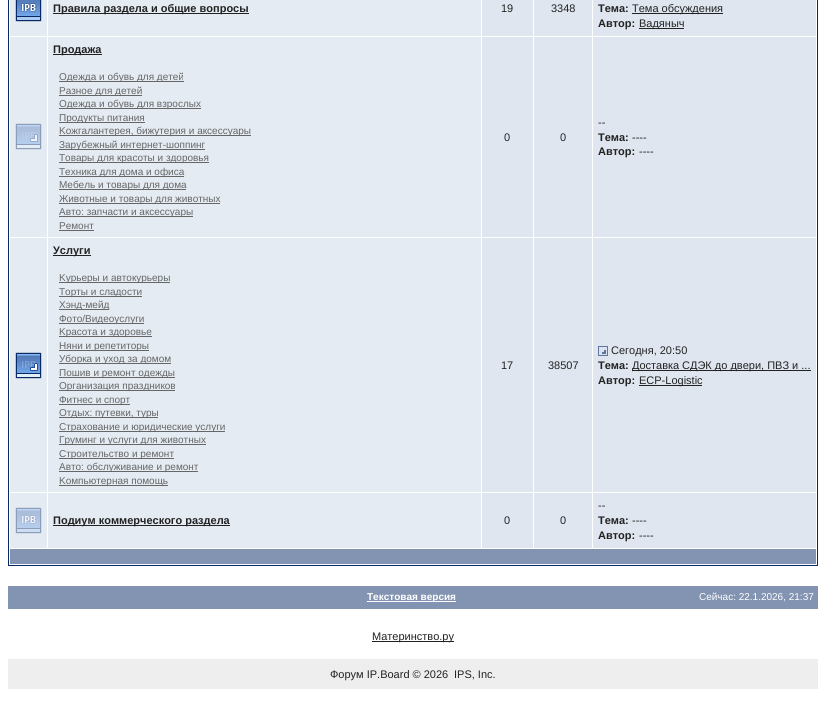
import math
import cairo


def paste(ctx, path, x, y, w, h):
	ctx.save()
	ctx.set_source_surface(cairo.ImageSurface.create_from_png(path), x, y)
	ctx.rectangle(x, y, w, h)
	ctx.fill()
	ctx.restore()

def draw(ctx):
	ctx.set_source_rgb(1, 1, 1)
	ctx.paint()
	ctx.rectangle(8.5, -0.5, 809, 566)
	ctx.set_source_rgb(0.027, 0.165, 0.4)
	ctx.set_line_width(1)
	ctx.stroke()
	ctx.set_source_rgb(0.894, 0.918, 0.949)
	ctx.rectangle(10, 0, 37, 36)
	ctx.fill()
	paste(ctx, 'media/1.png', 15, 0, 27, 22)
	ctx.rectangle(48, 0, 433, 36)
	ctx.fill()
	ctx.set_source_rgb(0.133, 0.133, 0.133)
	ctx.rectangle(53, 13, 196, 1)
	ctx.fill()
	ctx.select_font_face('Liberation Sans', cairo.FONT_SLANT_NORMAL, cairo.FONT_WEIGHT_BOLD)
	ctx.set_font_size(11)
	ctx.move_to(53, 12)
	ctx.show_text('Правила раздела и общие вопросы')
	ctx.set_source_rgb(0.875, 0.902, 0.937)
	ctx.rectangle(482, 0, 51, 36)
	ctx.fill()
	ctx.select_font_face('Liberation Sans')
	ctx.set_source_rgb(0.133, 0.133, 0.133)
	ctx.move_to(501, 12)
	ctx.show_text('19')
	ctx.set_source_rgb(0.875, 0.902, 0.937)
	ctx.rectangle(534, 0, 58, 36)
	ctx.fill()
	ctx.set_source_rgb(0.133, 0.133, 0.133)
	ctx.move_to(551, 12)
	ctx.show_text('3348')
	ctx.set_source_rgb(0.875, 0.902, 0.937)
	ctx.rectangle(593, 0, 223, 36)
	ctx.fill()
	ctx.select_font_face('Liberation Sans', cairo.FONT_SLANT_NORMAL, cairo.FONT_WEIGHT_BOLD)
	ctx.set_source_rgb(0.133, 0.133, 0.133)
	ctx.move_to(598, 12)
	ctx.show_text('Тема:')
	ctx.rectangle(632, 13, 91, 1)
	ctx.fill()
	ctx.select_font_face('Liberation Sans')
	ctx.move_to(632, 12)
	ctx.show_text('Тема обсуждения')
	ctx.select_font_face('Liberation Sans', cairo.FONT_SLANT_NORMAL, cairo.FONT_WEIGHT_BOLD)
	ctx.move_to(598, 27)
	ctx.show_text('Автор:')
	ctx.rectangle(639, 28, 45, 1)
	ctx.fill()
	ctx.select_font_face('Liberation Sans')
	ctx.move_to(639, 27)
	ctx.show_text('Вадяныч')
	ctx.set_source_rgb(0.894, 0.918, 0.949)
	ctx.rectangle(10, 37, 37, 200)
	ctx.fill()
	paste(ctx, 'media/2.png', 15, 123, 27, 27)
	ctx.rectangle(48, 37, 433, 200)
	ctx.fill()
	ctx.set_source_rgb(0.133, 0.133, 0.133)
	ctx.rectangle(53, 54, 49, 1)
	ctx.fill()
	ctx.select_font_face('Liberation Sans', cairo.FONT_SLANT_NORMAL, cairo.FONT_WEIGHT_BOLD)
	ctx.move_to(53, 53)
	ctx.show_text('Продажа')
	ctx.set_source_rgb(0.4, 0.4, 0.4)
	ctx.rectangle(59, 81, 125, 1)
	ctx.fill()
	ctx.select_font_face('Liberation Sans')
	ctx.set_font_size(10)
	ctx.move_to(59, 80)
	ctx.show_text('Одежда и обувь для детей')
	ctx.rectangle(59, 95, 83, 1)
	ctx.fill()
	ctx.move_to(59, 94)
	ctx.show_text('Разное для детей')
	ctx.rectangle(59, 108, 142, 1)
	ctx.fill()
	ctx.move_to(59, 107)
	ctx.show_text('Одежда и обувь для взрослых')
	ctx.rectangle(59, 122, 86, 1)
	ctx.fill()
	ctx.move_to(59, 121)
	ctx.show_text('Продукты питания')
	ctx.rectangle(59, 135, 192, 1)
	ctx.fill()
	ctx.move_to(59, 134)
	ctx.show_text('Kожгалантерея, бижутерия и аксессуары')
	ctx.rectangle(59, 149, 146, 1)
	ctx.fill()
	ctx.move_to(59, 148)
	ctx.show_text('Зарубежный интернет-шоппинг')
	ctx.rectangle(59, 162, 150, 1)
	ctx.fill()
	ctx.move_to(59, 161)
	ctx.show_text('Товары для красоты и здоровья')
	ctx.rectangle(59, 176, 125, 1)
	ctx.fill()
	ctx.move_to(59, 175)
	ctx.show_text('Техника для дома и офиса')
	ctx.rectangle(59, 189, 127, 1)
	ctx.fill()
	ctx.move_to(59, 188)
	ctx.show_text('Мебель и товары для дома')
	ctx.rectangle(59, 203, 161, 1)
	ctx.fill()
	ctx.move_to(59, 202)
	ctx.show_text('Животные и товары для животных')
	ctx.rectangle(59, 216, 134, 1)
	ctx.fill()
	ctx.move_to(59, 215)
	ctx.show_text('Авто: запчасти и аксессуары')
	ctx.move_to(59, 229)
	ctx.show_text('Ремонт')
	ctx.rectangle(59, 230, 35, 1)
	ctx.fill()
	ctx.set_source_rgb(0.875, 0.902, 0.937)
	ctx.rectangle(482, 37, 51, 200)
	ctx.fill()
	ctx.set_font_size(11)
	ctx.set_source_rgb(0.133, 0.133, 0.133)
	ctx.move_to(504, 141)
	ctx.show_text('0')
	ctx.set_source_rgb(0.875, 0.902, 0.937)
	ctx.rectangle(534, 37, 58, 200)
	ctx.fill()
	ctx.set_source_rgb(0.133, 0.133, 0.133)
	ctx.move_to(560, 141)
	ctx.show_text('0')
	ctx.set_source_rgb(0.875, 0.902, 0.937)
	ctx.rectangle(593, 37, 223, 200)
	ctx.fill()
	ctx.set_source_rgb(0.133, 0.133, 0.133)
	ctx.move_to(598, 126)
	ctx.show_text('--')
	ctx.select_font_face('Liberation Sans', cairo.FONT_SLANT_NORMAL, cairo.FONT_WEIGHT_BOLD)
	ctx.move_to(598, 141)
	ctx.show_text('Тема:')
	ctx.select_font_face('Liberation Sans')
	ctx.move_to(632, 141)
	ctx.show_text('----')
	ctx.select_font_face('Liberation Sans', cairo.FONT_SLANT_NORMAL, cairo.FONT_WEIGHT_BOLD)
	ctx.move_to(598, 155)
	ctx.show_text('Автор:')
	ctx.select_font_face('Liberation Sans')
	ctx.move_to(639, 155)
	ctx.show_text('----')
	ctx.set_source_rgb(0.894, 0.918, 0.949)
	ctx.rectangle(10, 238, 37, 254)
	ctx.fill()
	paste(ctx, 'media/3.png', 15, 352, 27, 27)
	ctx.rectangle(48, 238, 433, 254)
	ctx.fill()
	ctx.set_source_rgb(0.133, 0.133, 0.133)
	ctx.rectangle(53, 255, 38, 1)
	ctx.fill()
	ctx.select_font_face('Liberation Sans', cairo.FONT_SLANT_NORMAL, cairo.FONT_WEIGHT_BOLD)
	ctx.move_to(53, 254)
	ctx.show_text('Услуги')
	ctx.set_source_rgb(0.4, 0.4, 0.4)
	ctx.rectangle(59, 282, 111, 1)
	ctx.fill()
	ctx.select_font_face('Liberation Sans')
	ctx.set_font_size(10)
	ctx.move_to(59, 281)
	ctx.show_text('Kурьеры и автокурьеры')
	ctx.rectangle(59, 296, 83, 1)
	ctx.fill()
	ctx.move_to(59, 295)
	ctx.show_text('Торты и сладости')
	ctx.rectangle(59, 309, 50, 1)
	ctx.fill()
	ctx.move_to(59, 308)
	ctx.show_text('Хэнд-мейд')
	ctx.rectangle(59, 323, 85, 1)
	ctx.fill()
	ctx.move_to(59, 322)
	ctx.show_text('Фото/Видеоуслуги')
	ctx.rectangle(59, 336, 93, 1)
	ctx.fill()
	ctx.move_to(59, 335)
	ctx.show_text('Kрасота и здоровье')
	ctx.rectangle(59, 350, 90, 1)
	ctx.fill()
	ctx.move_to(59, 349)
	ctx.show_text('Няни и репетиторы')
	ctx.rectangle(59, 363, 112, 1)
	ctx.fill()
	ctx.move_to(59, 362)
	ctx.show_text('Уборка и уход за домом')
	ctx.rectangle(59, 377, 116, 1)
	ctx.fill()
	ctx.move_to(59, 376)
	ctx.show_text('Пошив и ремонт одежды')
	ctx.rectangle(59, 390, 116, 1)
	ctx.fill()
	ctx.move_to(59, 389)
	ctx.show_text('Организация праздников')
	ctx.rectangle(59, 404, 71, 1)
	ctx.fill()
	ctx.move_to(59, 403)
	ctx.show_text('Фитнес и спорт')
	ctx.rectangle(59, 417, 99, 1)
	ctx.fill()
	ctx.move_to(59, 416)
	ctx.show_text('Отдых: путевки, туры')
	ctx.rectangle(59, 431, 166, 1)
	ctx.fill()
	ctx.move_to(59, 430)
	ctx.show_text('Страхование и юридические услуги')
	ctx.rectangle(59, 444, 147, 1)
	ctx.fill()
	ctx.move_to(59, 443)
	ctx.show_text('Груминг и услуги для животных')
	ctx.rectangle(59, 458, 115, 1)
	ctx.fill()
	ctx.move_to(59, 457)
	ctx.show_text('Строительство и ремонт')
	ctx.rectangle(59, 471, 139, 1)
	ctx.fill()
	ctx.move_to(59, 470)
	ctx.show_text('Авто: обслуживание и ремонт')
	ctx.rectangle(59, 485, 109, 1)
	ctx.fill()
	ctx.move_to(59, 484)
	ctx.show_text('Kомпьютерная помощь')
	ctx.set_source_rgb(0.875, 0.902, 0.937)
	ctx.rectangle(482, 238, 51, 254)
	ctx.fill()
	ctx.set_font_size(11)
	ctx.set_source_rgb(0.133, 0.133, 0.133)
	ctx.move_to(501, 369)
	ctx.show_text('17')
	ctx.set_source_rgb(0.875, 0.902, 0.937)
	ctx.rectangle(534, 238, 58, 254)
	ctx.fill()
	ctx.set_source_rgb(0.133, 0.133, 0.133)
	ctx.move_to(548, 369)
	ctx.show_text('38507')
	ctx.set_source_rgb(0.875, 0.902, 0.937)
	ctx.rectangle(593, 238, 223, 254)
	ctx.fill()
	paste(ctx, 'media/4.png', 598, 346, 10, 10)
	ctx.set_source_rgb(0.133, 0.133, 0.133)
	ctx.move_to(611, 354)
	ctx.show_text('Сегодня, 20:50')
	ctx.select_font_face('Liberation Sans', cairo.FONT_SLANT_NORMAL, cairo.FONT_WEIGHT_BOLD)
	ctx.move_to(598, 369)
	ctx.show_text('Тема:')
	ctx.rectangle(632, 370, 179, 1)
	ctx.fill()
	ctx.select_font_face('Liberation Sans')
	ctx.move_to(632, 369)
	ctx.show_text('Доставка СДЭК до двери, ПВЗ и ...')
	ctx.select_font_face('Liberation Sans', cairo.FONT_SLANT_NORMAL, cairo.FONT_WEIGHT_BOLD)
	ctx.move_to(598, 384)
	ctx.show_text('Автор:')
	ctx.rectangle(639, 385, 63, 1)
	ctx.fill()
	ctx.select_font_face('Liberation Sans')
	ctx.move_to(639, 384)
	ctx.show_text('ECP-Logistic')
	ctx.set_source_rgb(0.894, 0.918, 0.949)
	ctx.rectangle(10, 493, 37, 55)
	ctx.fill()
	paste(ctx, 'media/5.png', 15, 507, 27, 27)
	ctx.rectangle(48, 493, 433, 55)
	ctx.fill()
	ctx.set_source_rgb(0.133, 0.133, 0.133)
	ctx.rectangle(53, 525, 177, 1)
	ctx.fill()
	ctx.select_font_face('Liberation Sans', cairo.FONT_SLANT_NORMAL, cairo.FONT_WEIGHT_BOLD)
	ctx.move_to(53, 524)
	ctx.show_text('Подиум коммерческого раздела')
	ctx.set_source_rgb(0.875, 0.902, 0.937)
	ctx.rectangle(482, 493, 51, 55)
	ctx.fill()
	ctx.select_font_face('Liberation Sans')
	ctx.set_source_rgb(0.133, 0.133, 0.133)
	ctx.move_to(504, 524)
	ctx.show_text('0')
	ctx.set_source_rgb(0.875, 0.902, 0.937)
	ctx.rectangle(534, 493, 58, 55)
	ctx.fill()
	ctx.set_source_rgb(0.133, 0.133, 0.133)
	ctx.move_to(560, 524)
	ctx.show_text('0')
	ctx.set_source_rgb(0.875, 0.902, 0.937)
	ctx.rectangle(593, 493, 223, 55)
	ctx.fill()
	ctx.set_source_rgb(0.133, 0.133, 0.133)
	ctx.move_to(598, 509)
	ctx.show_text('--')
	ctx.select_font_face('Liberation Sans', cairo.FONT_SLANT_NORMAL, cairo.FONT_WEIGHT_BOLD)
	ctx.move_to(598, 524)
	ctx.show_text('Тема:')
	ctx.select_font_face('Liberation Sans')
	ctx.move_to(632, 524)
	ctx.show_text('----')
	ctx.select_font_face('Liberation Sans', cairo.FONT_SLANT_NORMAL, cairo.FONT_WEIGHT_BOLD)
	ctx.move_to(598, 539)
	ctx.show_text('Автор:')
	ctx.select_font_face('Liberation Sans')
	ctx.move_to(639, 539)
	ctx.show_text('----')
	ctx.set_source_rgb(0.514, 0.58, 0.698)
	ctx.rectangle(10, 549, 806, 15)
	ctx.rectangle(8, 586, 810, 23)
	ctx.fill()
	ctx.set_source_rgb(1, 1, 1)
	ctx.rectangle(367, 601, 89, 1)
	ctx.fill()
	ctx.select_font_face('Liberation Sans', cairo.FONT_SLANT_NORMAL, cairo.FONT_WEIGHT_BOLD)
	ctx.set_font_size(10)
	ctx.move_to(367, 600)
	ctx.show_text('Текстовая версия')
	ctx.select_font_face('Liberation Sans')
	ctx.move_to(699, 600)
	ctx.show_text('Сейчас: 22.1.2026, 21:37')
	ctx.set_source_rgb(0.133, 0.133, 0.133)
	ctx.rectangle(372, 641, 82, 1)
	ctx.fill()
	ctx.set_font_size(11)
	ctx.move_to(372, 640)
	ctx.show_text('Материнство.ру')
	ctx.set_source_rgb(0.933, 0.933, 0.933)
	ctx.rectangle(8, 659, 810, 30)
	ctx.fill()
	ctx.set_source_rgb(0.133, 0.133, 0.133)
	ctx.move_to(330, 678)
	ctx.show_text('Форум IP.Board © 2026')
	ctx.move_to(454, 678)
	ctx.show_text('IPS, Inc.')


surface = cairo.ImageSurface(cairo.FORMAT_RGB24, 826, 709)
ctx = cairo.Context(surface)
options = cairo.FontOptions()
options.set_hint_metrics(cairo.HINT_METRICS_OFF)
options.set_hint_style(cairo.HINT_STYLE_NONE)
ctx.set_font_options(options)
ctx.set_miter_limit(4)
draw(ctx)
surface.write_to_png('image.png')
